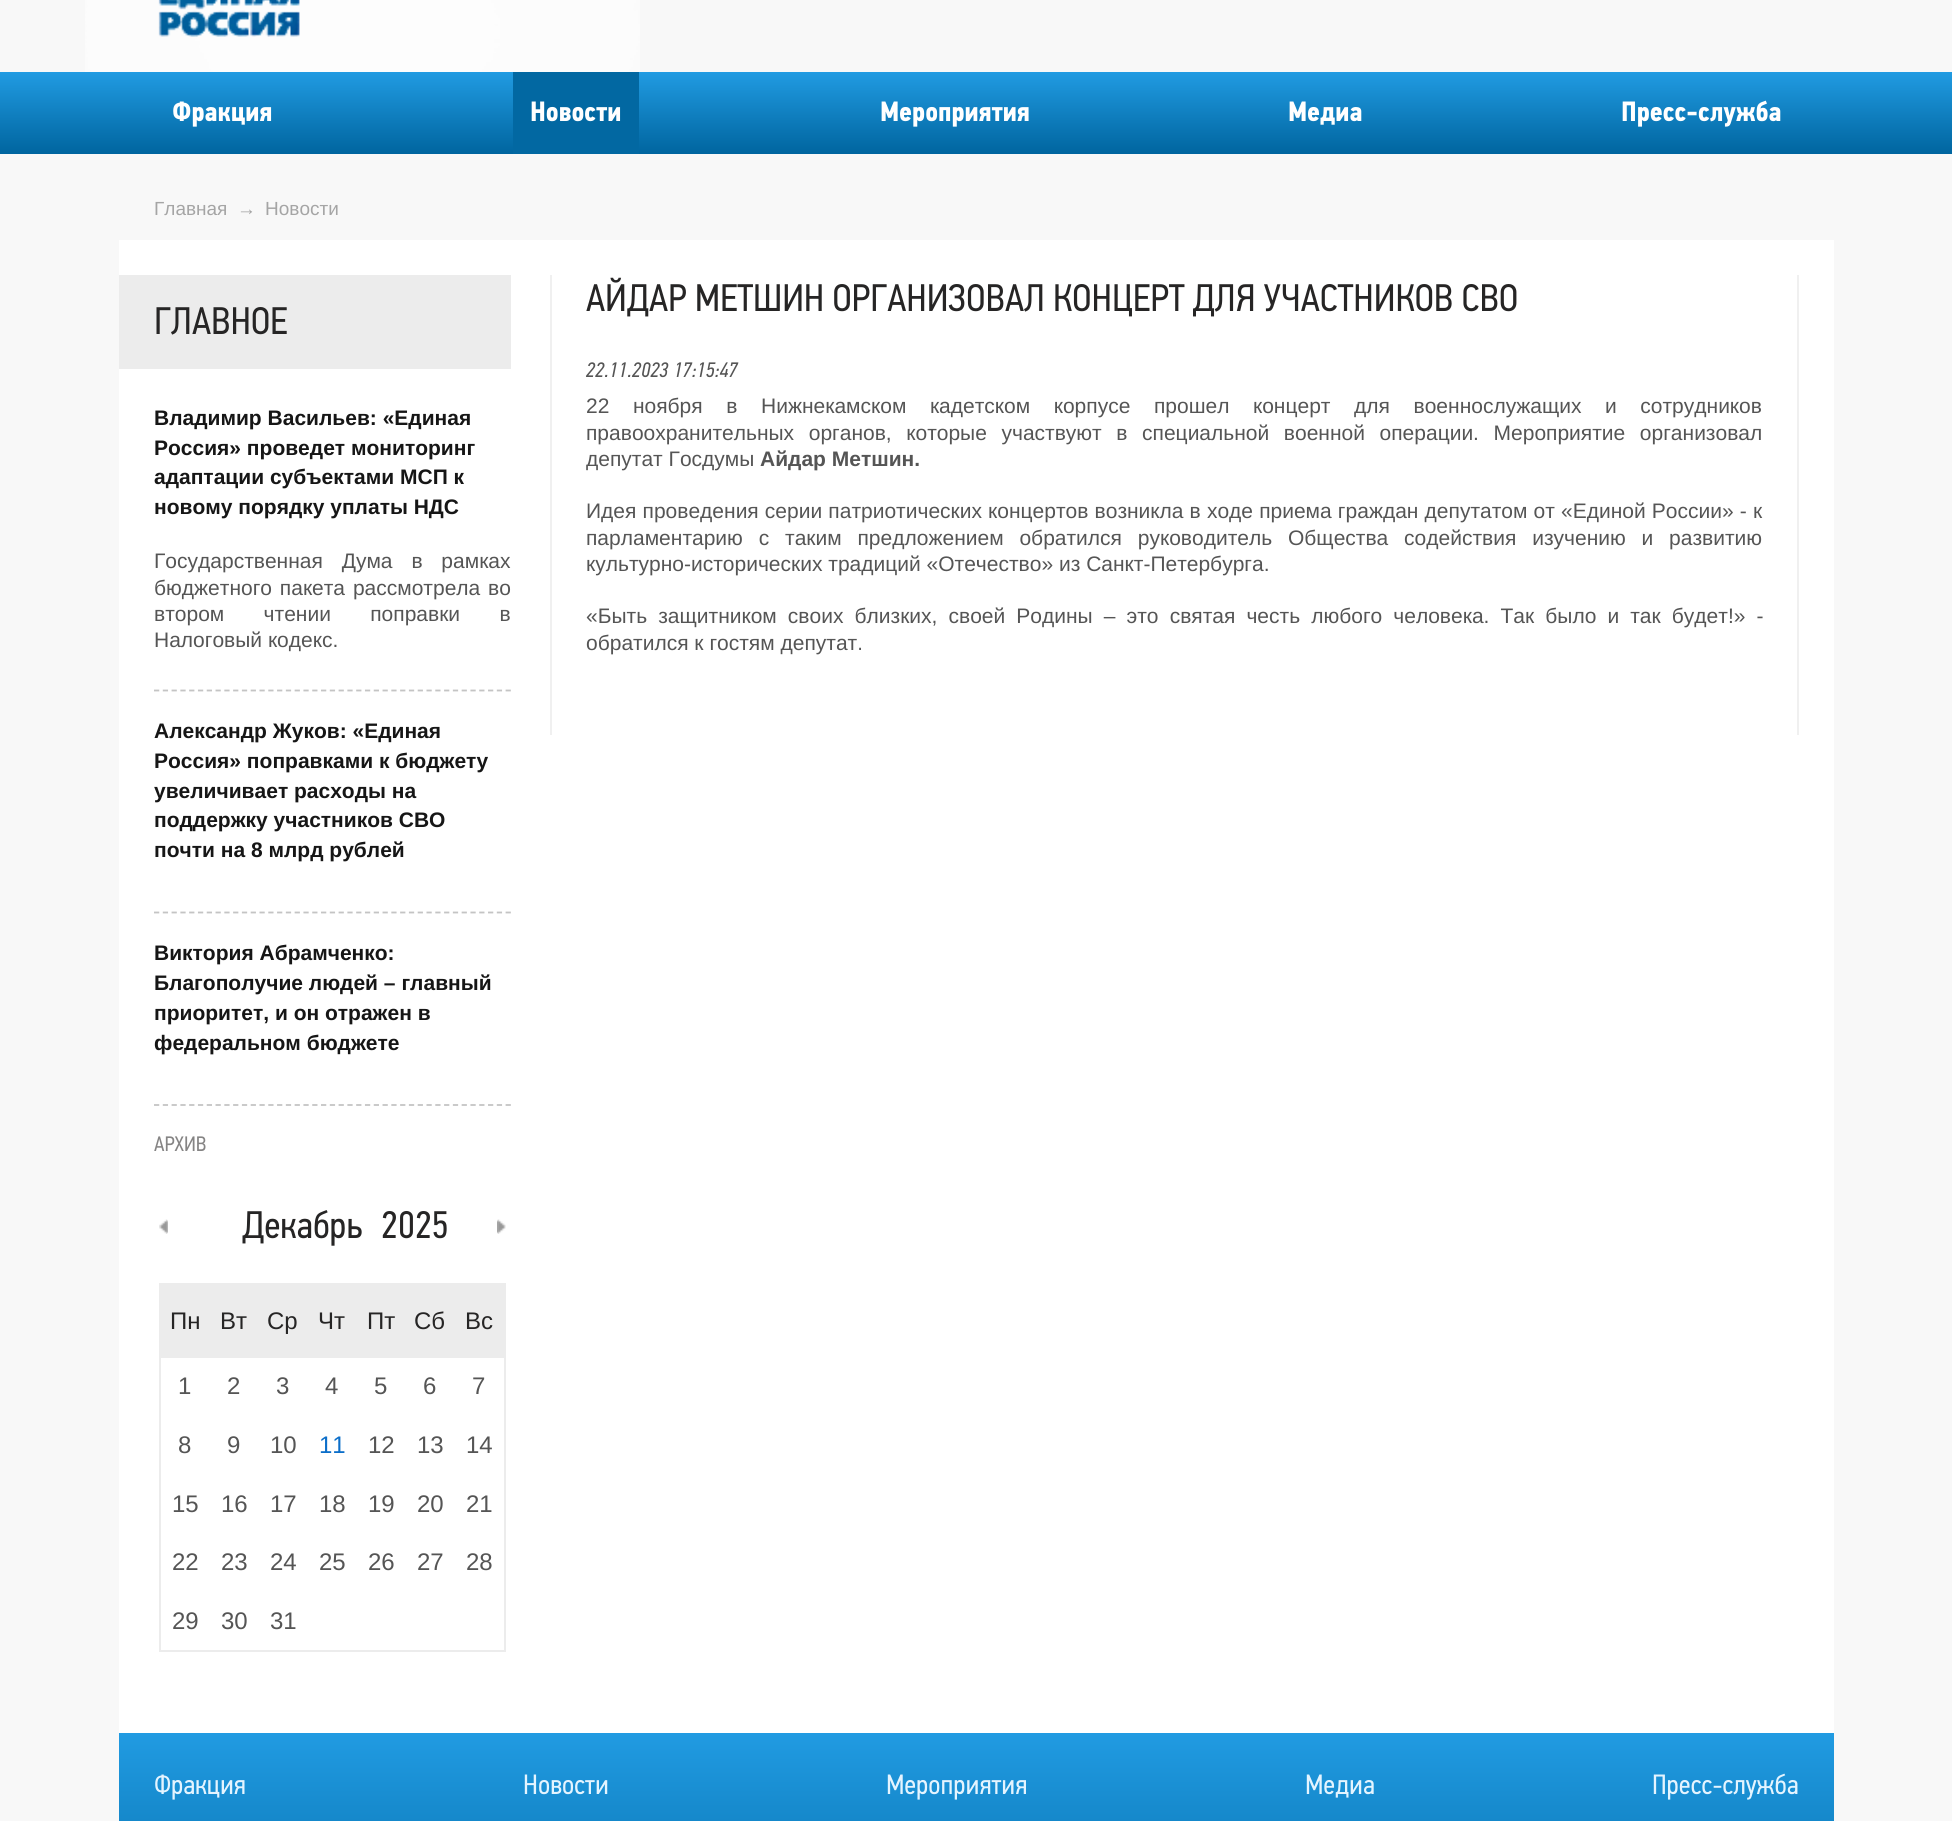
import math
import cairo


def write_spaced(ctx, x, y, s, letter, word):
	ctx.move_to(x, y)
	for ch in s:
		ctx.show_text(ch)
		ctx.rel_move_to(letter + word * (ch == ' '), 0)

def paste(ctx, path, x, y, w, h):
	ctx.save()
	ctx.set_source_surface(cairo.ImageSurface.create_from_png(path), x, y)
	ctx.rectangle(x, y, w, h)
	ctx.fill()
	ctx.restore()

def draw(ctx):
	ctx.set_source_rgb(0.969, 0.969, 0.969)
	ctx.paint()
	paste(ctx, 'media/1.png', 85, 0, 555, 72)
	paste(ctx, 'media/2.png', 158, 0, 142, 37)
	gradient = cairo.LinearGradient(977, 154, 977, 72)
	gradient.add_color_stop_rgba(0, 0, 0.396, 0.624, 1)
	gradient.add_color_stop_rgba(1, 0.129, 0.608, 0.886, 1)
	ctx.set_source(gradient)
	ctx.rectangle(0, 72, 1952, 82)
	ctx.fill()
	ctx.select_font_face('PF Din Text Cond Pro', cairo.FONT_SLANT_NORMAL, cairo.FONT_WEIGHT_BOLD)
	ctx.set_font_size(28)
	ctx.set_source_rgb(1, 1, 1)
	ctx.move_to(172, 121)
	ctx.show_text('Фракция')
	ctx.set_source_rgb(0.008, 0.408, 0.635)
	ctx.rectangle(513, 72, 126, 82)
	ctx.fill()
	ctx.set_source_rgb(1, 1, 1)
	for x, y, s in [
		(530, 121, 'Новости'),
		(880, 121, 'Мероприятия'),
		(1288, 121, 'Медиа'),
		(1621, 121, 'Пресс-служба'),
	]:
		ctx.move_to(x, y)
		ctx.show_text(s)
	ctx.select_font_face('Liberation Sans')
	ctx.set_font_size(19)
	ctx.set_source_rgb(0.647, 0.647, 0.647)
	for x, y, s in [
		(154, 215, 'Главная'),
		(237, 215, '→'),
		(265, 215, 'Новости'),
	]:
		ctx.move_to(x, y)
		ctx.show_text(s)
	ctx.set_source_rgb(1, 1, 1)
	ctx.rectangle(119, 240, 1715, 1493)
	ctx.fill()
	ctx.set_source_rgb(0.922, 0.922, 0.922)
	ctx.rectangle(119, 275, 392, 94)
	ctx.fill()
	ctx.select_font_face('PF Din Text Cond Pro')
	ctx.set_font_size(38.5)
	ctx.set_source_rgb(0.149, 0.145, 0.145)
	ctx.move_to(154, 334)
	ctx.show_text('ГЛАВНОЕ')
	ctx.new_path()
	ctx.move_to(154, 690.5)
	ctx.line_to(511, 690.5)
	ctx.set_source_rgb(0.769, 0.769, 0.769)
	ctx.set_line_width(1.8)
	ctx.set_dash([5.25, 3.54])
	ctx.stroke()
	ctx.select_font_face('Liberation Sans', cairo.FONT_SLANT_NORMAL, cairo.FONT_WEIGHT_BOLD)
	ctx.set_font_size(21)
	ctx.set_source_rgb(0.086, 0.086, 0.086)
	for x, y, s in [
		(154, 425, 'Владимир Васильев: «Единая'),
		(154, 455, 'Россия» проведет мониторинг'),
		(154, 484, 'адаптации субъектами МСП к'),
		(154, 514, 'новому порядку уплаты НДС'),
	]:
		ctx.move_to(x, y)
		ctx.show_text(s)
	ctx.select_font_face('Liberation Sans')
	ctx.set_source_rgb(0.333, 0.333, 0.333)
	write_spaced(ctx, 154, 568, 'Государственная Дума в рамках', 0, 13)
	write_spaced(ctx, 154, 595, 'бюджетного пакета рассмотрела во', 0, 2)
	write_spaced(ctx, 154, 621, 'втором чтении поправки в', 0, 33.5)
	ctx.move_to(154, 647)
	ctx.show_text('Налоговый кодекс.')
	ctx.new_path()
	ctx.move_to(154, 912.5)
	ctx.line_to(511, 912.5)
	ctx.set_source_rgb(0.769, 0.769, 0.769)
	ctx.stroke()
	ctx.select_font_face('Liberation Sans', cairo.FONT_SLANT_NORMAL, cairo.FONT_WEIGHT_BOLD)
	ctx.set_source_rgb(0.086, 0.086, 0.086)
	for x, y, s in [
		(154, 738, 'Александр Жуков: «Единая'),
		(154, 768, 'Россия» поправками к бюджету'),
		(154, 798, 'увеличивает расходы на'),
		(154, 827, 'поддержку участников СВО'),
		(154, 857, 'почти на 8 млрд рублей'),
	]:
		ctx.move_to(x, y)
		ctx.show_text(s)
	ctx.new_path()
	ctx.move_to(154, 1105)
	ctx.line_to(511, 1105)
	ctx.set_source_rgb(0.769, 0.769, 0.769)
	ctx.stroke()
	ctx.set_source_rgb(0.086, 0.086, 0.086)
	for x, y, s in [
		(154, 960, 'Виктория Абрамченко:'),
		(154, 990, 'Благополучие людей – главный'),
		(154, 1020, 'приоритет, и он отражен в'),
		(154, 1050, 'федеральном бюджете'),
	]:
		ctx.move_to(x, y)
		ctx.show_text(s)
	ctx.select_font_face('PF Din Text Cond Pro')
	ctx.set_source_rgb(0.522, 0.518, 0.518)
	ctx.move_to(154, 1151)
	ctx.show_text('АРХИВ')
	paste(ctx, 'media/3.png', 159, 1219, 9, 15)
	ctx.set_font_size(38.5)
	ctx.set_source_rgb(0.149, 0.145, 0.145)
	ctx.move_to(242, 1238)
	ctx.show_text('Декабрь')
	ctx.move_to(381, 1238)
	ctx.show_text('2025')
	paste(ctx, 'media/4.png', 497, 1219, 9, 15)
	ctx.set_source_rgb(0.922, 0.922, 0.922)
	ctx.rectangle(159, 1283, 347, 2)
	ctx.rectangle(504, 1283, 2, 369)
	ctx.rectangle(159, 1650, 347, 2)
	ctx.rectangle(159, 1283, 2, 369)
	ctx.rectangle(161, 1285, 343, 73)
	ctx.fill()
	ctx.select_font_face('Liberation Sans')
	ctx.set_font_size(24)
	ctx.set_source_rgb(0.149, 0.145, 0.145)
	for x, y, s in [
		(170, 1329, 'Пн'),
		(220, 1329, 'Вт'),
		(267, 1329, 'Ср'),
		(318, 1329, 'Чт'),
		(367, 1329, 'Пт'),
		(414, 1329, 'Сб'),
		(465, 1329, 'Вс'),
	]:
		ctx.move_to(x, y)
		ctx.show_text(s)
	ctx.set_source_rgb(0.333, 0.333, 0.333)
	for x, y, s in [
		(178, 1394, '1'),
		(227, 1394, '2'),
		(276, 1394, '3'),
		(325, 1394, '4'),
		(374, 1394, '5'),
		(423, 1394, '6'),
		(472, 1394, '7'),
		(178, 1453, '8'),
		(227, 1453, '9'),
		(270, 1453, '10'),
	]:
		ctx.move_to(x, y)
		ctx.show_text(s)
	ctx.set_source_rgb(0.043, 0.431, 0.788)
	ctx.move_to(319, 1453)
	ctx.show_text('11')
	ctx.set_source_rgb(0.333, 0.333, 0.333)
	for x, y, s in [
		(368, 1453, '12'),
		(417, 1453, '13'),
		(466, 1453, '14'),
		(172, 1512, '15'),
		(221, 1512, '16'),
		(270, 1512, '17'),
		(319, 1512, '18'),
		(368, 1512, '19'),
		(417, 1512, '20'),
		(466, 1512, '21'),
		(172, 1570, '22'),
		(221, 1570, '23'),
		(270, 1570, '24'),
		(319, 1570, '25'),
		(368, 1570, '26'),
		(417, 1570, '27'),
		(466, 1570, '28'),
		(172, 1629, '29'),
		(221, 1629, '30'),
		(270, 1629, '31'),
	]:
		ctx.move_to(x, y)
		ctx.show_text(s)
	ctx.set_source_rgb(0.941, 0.941, 0.941)
	ctx.rectangle(1797, 275, 2, 460)
	ctx.fill()
	ctx.rectangle(550, 275, 2, 460)
	ctx.fill()
	ctx.select_font_face('PF Din Text Cond Pro')
	ctx.set_font_size(38.5)
	ctx.set_source_rgb(0.149, 0.145, 0.145)
	ctx.move_to(586, 311)
	ctx.show_text('АЙДАР МЕТШИН ОРГАНИЗОВАЛ КОНЦЕРТ ДЛЯ УЧАСТНИКОВ СВО')
	ctx.select_font_face('PF Din Text Cond Pro', cairo.FONT_SLANT_ITALIC)
	ctx.set_font_size(21)
	ctx.set_source_rgb(0.333, 0.333, 0.333)
	ctx.move_to(586, 377)
	ctx.show_text('22.11.2023 17:15:47')
	ctx.select_font_face('Liberation Sans')
	write_spaced(ctx, 586, 413, '22 ноября в Нижнекамском кадетском корпусе прошел концерт для военнослужащих и сотрудников', 0, 17.75)
	write_spaced(ctx, 586, 440, 'правоохранительных органов, которые участвуют в специальной военной операции. Мероприятие организовал', 0, 8.75)
	ctx.move_to(586, 466)
	ctx.show_text('депутат Госдумы')
	ctx.select_font_face('Liberation Sans', cairo.FONT_SLANT_NORMAL, cairo.FONT_WEIGHT_BOLD)
	ctx.move_to(760, 466)
	ctx.show_text('Айдар Метшин.')
	ctx.select_font_face('Liberation Sans')
	write_spaced(ctx, 586, 518, 'Идея проведения серии патриотических концертов возникла в ходе приема граждан депутатом от «Единой России» - к', 0, 0.3)
	write_spaced(ctx, 586, 545, 'парламентарию с таким предложением обратился руководитель Общества содействия изучению и развитию', 0, 10)
	ctx.move_to(586, 571)
	ctx.show_text('культурно-исторических традиций «Отечество» из Санкт-Петербурга.')
	write_spaced(ctx, 586, 623, '«Быть защитником своих близких, своей Родины – это святая честь любого человека. Так было и так будет!» -', 0, 5.25)
	ctx.move_to(586, 650)
	ctx.show_text('обратился к гостям депутат.')
	gradient = cairo.LinearGradient(977, 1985, 977, 1733)
	gradient.add_color_stop_rgba(0, 0, 0.396, 0.624, 1)
	gradient.add_color_stop_rgba(1, 0.129, 0.608, 0.886, 1)
	ctx.set_source(gradient)
	ctx.rectangle(119, 1733, 1715, 88)
	ctx.fill()
	ctx.select_font_face('PF Din Text Cond Pro')
	ctx.set_font_size(28)
	ctx.set_source_rgb(0.894, 0.957, 1)
	for x, y, s in [
		(154, 1794, 'Фракция'),
		(523, 1794, 'Новости'),
		(886, 1794, 'Мероприятия'),
		(1305, 1794, 'Медиа'),
		(1652, 1794, 'Пресс-служба'),
	]:
		ctx.move_to(x, y)
		ctx.show_text(s)


surface = cairo.ImageSurface(cairo.FORMAT_RGB24, 1952, 1821)
ctx = cairo.Context(surface)
options = cairo.FontOptions()
options.set_hint_metrics(cairo.HINT_METRICS_OFF)
options.set_hint_style(cairo.HINT_STYLE_NONE)
ctx.set_font_options(options)
ctx.set_miter_limit(4)
draw(ctx)
surface.write_to_png('image.png')
